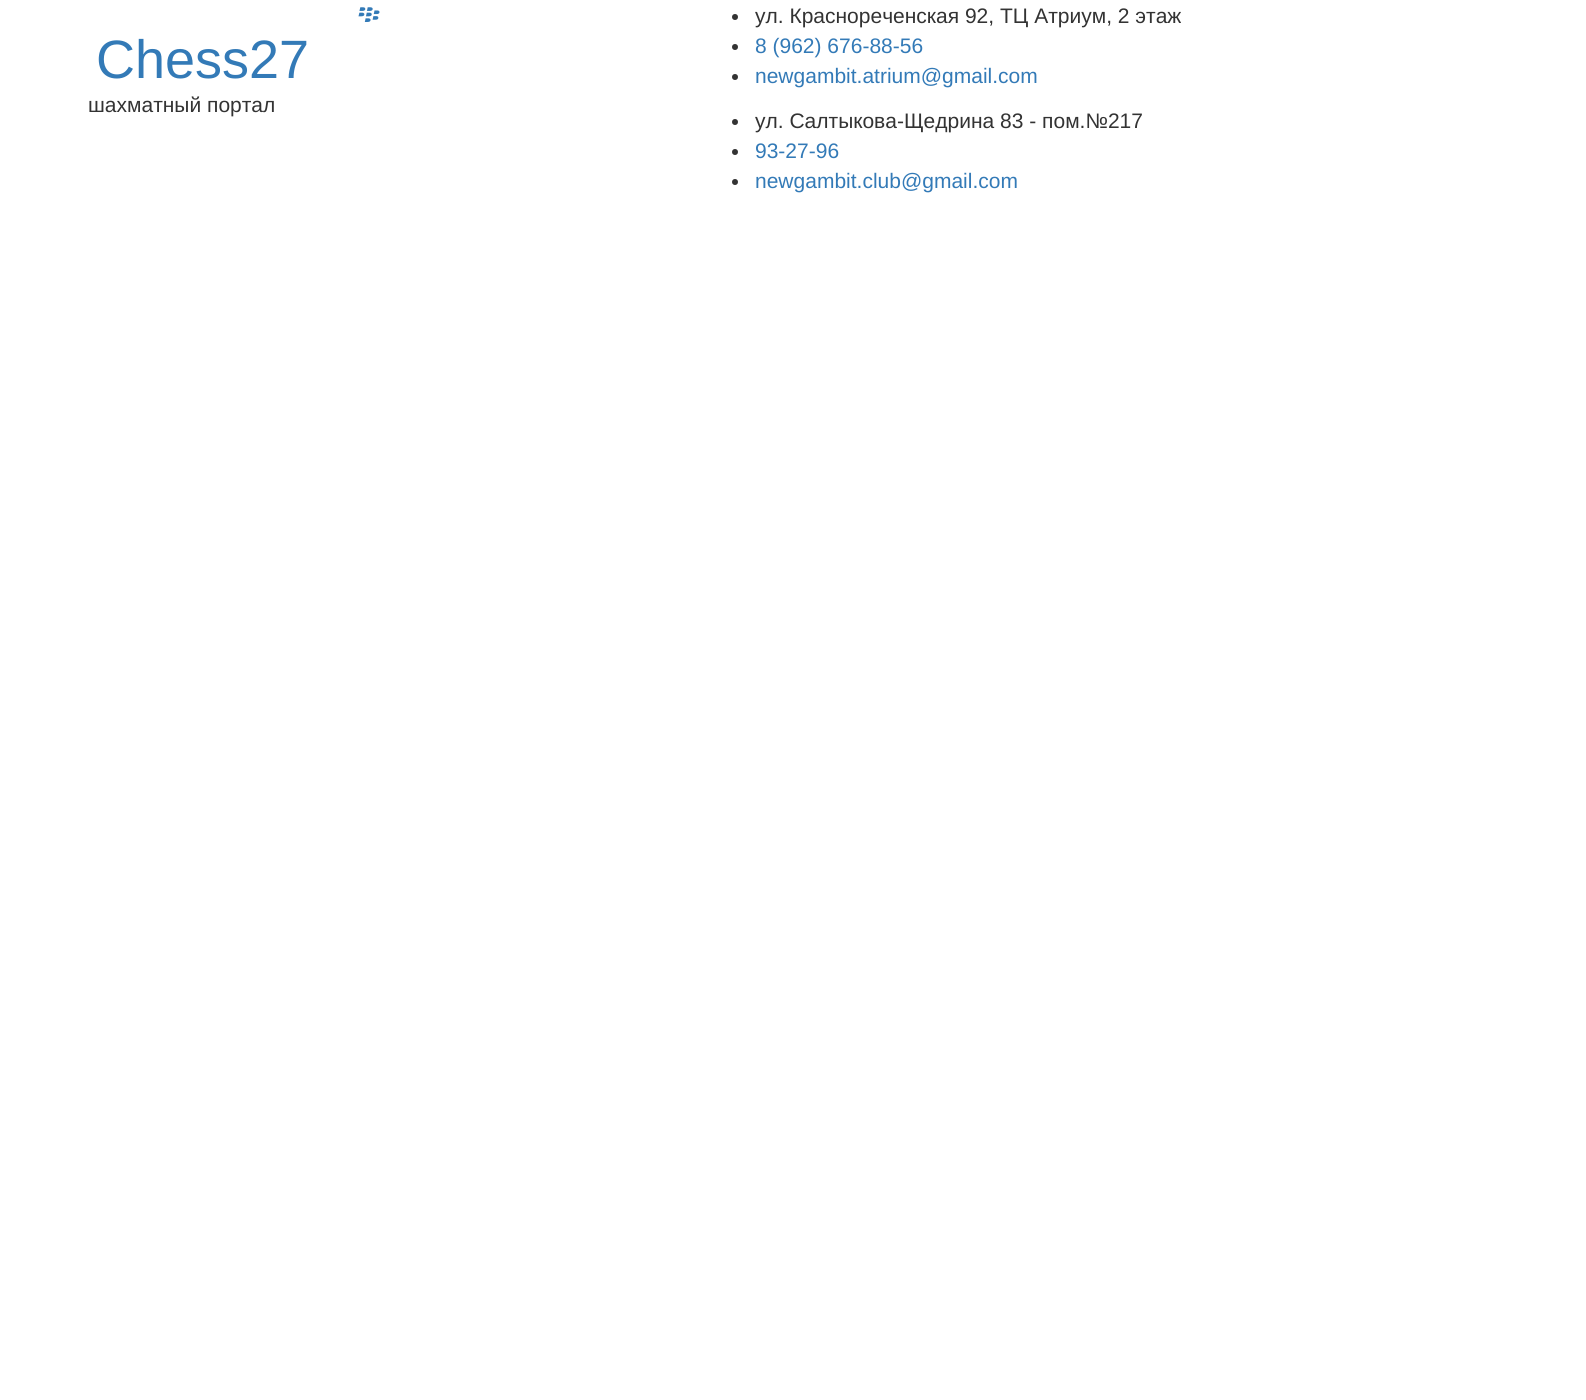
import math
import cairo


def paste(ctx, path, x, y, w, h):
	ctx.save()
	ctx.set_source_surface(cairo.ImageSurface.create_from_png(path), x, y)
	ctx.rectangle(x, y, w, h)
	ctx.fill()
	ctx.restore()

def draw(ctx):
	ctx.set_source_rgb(1, 1, 1)
	ctx.paint()
	paste(ctx, 'media/1.png', 358, 7, 22, 15)
	ctx.select_font_face('Liberation Sans')
	ctx.set_font_size(54)
	ctx.set_source_rgb(0.2, 0.478, 0.718)
	ctx.move_to(96, 78)
	ctx.show_text('Chess27')
	ctx.set_font_size(21)
	ctx.set_source_rgb(0.2, 0.2, 0.2)
	ctx.move_to(88, 112)
	ctx.show_text('шахматный портал')
	ctx.new_path()
	ctx.arc(735, 17, 3, 0, 2 * math.pi)
	ctx.fill()
	ctx.move_to(755, 23)
	ctx.show_text('ул. Краснореченская 92, ТЦ Атриум, 2 этаж')
	ctx.new_path()
	ctx.arc(735, 47, 3, 0, 2 * math.pi)
	ctx.fill()
	ctx.set_source_rgb(0.2, 0.478, 0.718)
	ctx.move_to(755, 53)
	ctx.show_text('8 (962) 676-88-56')
	ctx.set_source_rgb(0.2, 0.2, 0.2)
	ctx.new_path()
	ctx.arc(735, 77, 3, 0, 2 * math.pi)
	ctx.fill()
	ctx.set_source_rgb(0.2, 0.478, 0.718)
	ctx.move_to(755, 83)
	ctx.show_text('newgambit.atrium@gmail.com')
	ctx.set_source_rgb(0.2, 0.2, 0.2)
	ctx.new_path()
	ctx.arc(735, 122, 3, 0, 2 * math.pi)
	ctx.fill()
	ctx.move_to(755, 128)
	ctx.show_text('ул. Салтыкова-Щедрина 83 - пом.№217')
	ctx.new_path()
	ctx.arc(735, 152, 3, 0, 2 * math.pi)
	ctx.fill()
	ctx.set_source_rgb(0.2, 0.478, 0.718)
	ctx.move_to(755, 158)
	ctx.show_text('93-27-96')
	ctx.set_source_rgb(0.2, 0.2, 0.2)
	ctx.new_path()
	ctx.arc(735, 182, 3, 0, 2 * math.pi)
	ctx.fill()
	ctx.set_source_rgb(0.2, 0.478, 0.718)
	ctx.move_to(755, 188)
	ctx.show_text('newgambit.club@gmail.com')


surface = cairo.ImageSurface(cairo.FORMAT_RGB24, 1586, 1400)
ctx = cairo.Context(surface)
options = cairo.FontOptions()
options.set_hint_metrics(cairo.HINT_METRICS_OFF)
options.set_hint_style(cairo.HINT_STYLE_NONE)
ctx.set_font_options(options)
ctx.set_miter_limit(4)
draw(ctx)
surface.write_to_png('image.png')
